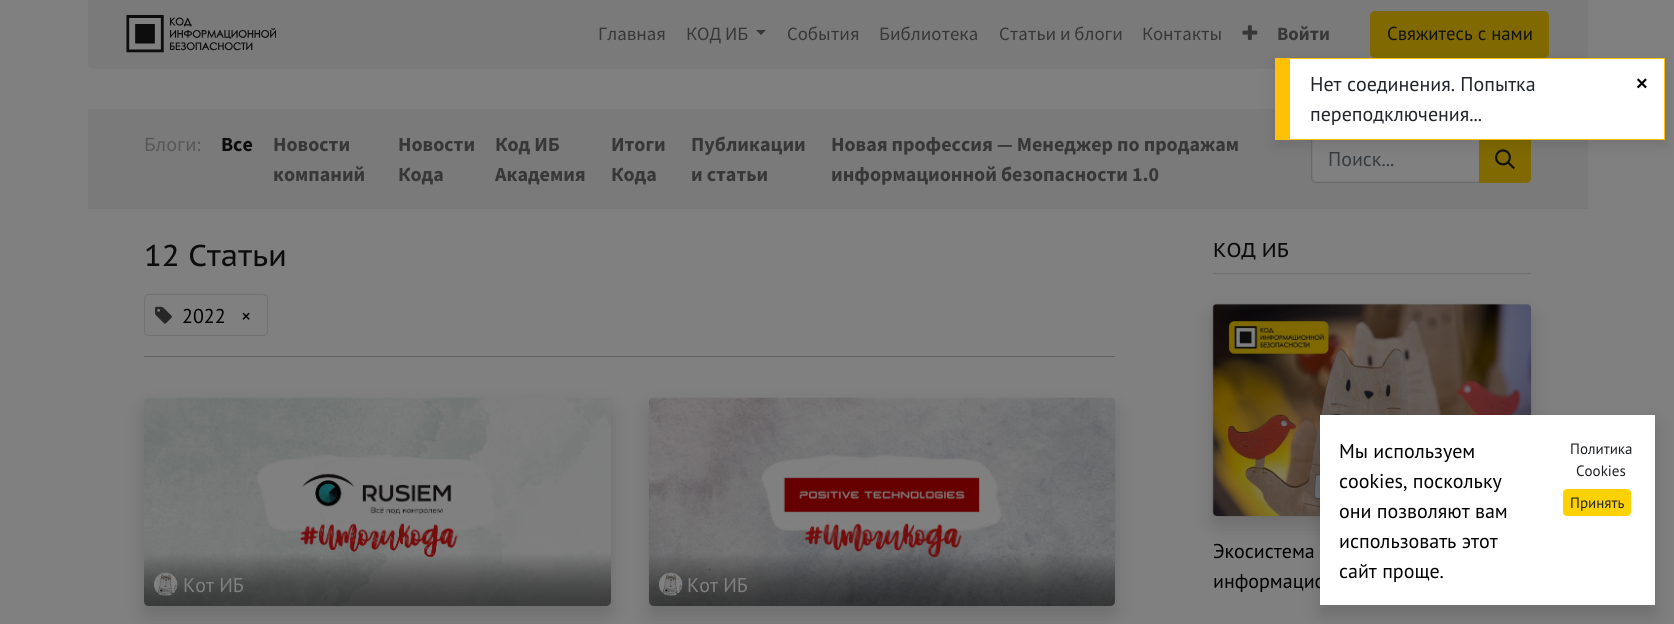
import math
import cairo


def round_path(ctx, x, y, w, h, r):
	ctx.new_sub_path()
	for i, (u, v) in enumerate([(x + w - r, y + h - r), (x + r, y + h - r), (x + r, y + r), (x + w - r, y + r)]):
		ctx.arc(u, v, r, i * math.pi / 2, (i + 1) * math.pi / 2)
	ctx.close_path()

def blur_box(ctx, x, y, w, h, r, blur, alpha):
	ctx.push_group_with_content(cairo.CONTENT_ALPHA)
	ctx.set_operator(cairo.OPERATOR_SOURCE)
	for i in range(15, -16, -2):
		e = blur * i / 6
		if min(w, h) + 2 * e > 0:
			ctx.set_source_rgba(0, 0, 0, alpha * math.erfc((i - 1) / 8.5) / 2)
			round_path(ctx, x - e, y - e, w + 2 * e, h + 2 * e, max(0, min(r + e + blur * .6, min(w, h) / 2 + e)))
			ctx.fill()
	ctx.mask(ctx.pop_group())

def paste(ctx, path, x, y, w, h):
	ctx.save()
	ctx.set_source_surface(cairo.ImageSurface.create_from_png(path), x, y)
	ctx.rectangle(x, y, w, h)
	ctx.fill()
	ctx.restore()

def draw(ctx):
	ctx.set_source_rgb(0.502, 0.502, 0.502)
	ctx.paint()
	ctx.set_source_rgb(0.478, 0.478, 0.482)
	ctx.new_path()
	ctx.move_to(88, 0)
	ctx.line_to(1588, 0)
	ctx.line_to(1588, 63)
	ctx.curve_to(1588, 66.5, 1585.5, 69, 1582, 69)
	ctx.line_to(94, 69)
	ctx.curve_to(90.5, 69, 88, 66.5, 88, 63)
	ctx.close_path()
	ctx.fill()
	paste(ctx, 'media/1.png', 126, 15, 150, 38)
	ctx.select_font_face('Source Sans Pro')
	ctx.set_font_size(18.75)
	ctx.set_source_rgb(0.216, 0.216, 0.216)
	ctx.move_to(598, 40)
	ctx.show_text('Главная')
	ctx.move_to(686, 40)
	ctx.show_text('КОД ИБ')
	ctx.new_path()
	ctx.move_to(756, 30)
	ctx.line_to(766, 30)
	ctx.line_to(761, 35)
	ctx.close_path()
	ctx.fill()
	for x, y, s in [
		(787, 40, 'События'),
		(879, 40, 'Библиотека'),
		(999, 40, 'Статьи и блоги'),
		(1142, 40, 'Контакты'),
	]:
		ctx.move_to(x, y)
		ctx.show_text(s)
	paste(ctx, 'media/2.png', 1242, 25, 16, 15)
	ctx.select_font_face('Source Sans Pro', cairo.FONT_SLANT_NORMAL, cairo.FONT_WEIGHT_BOLD)
	ctx.move_to(1277, 40)
	ctx.show_text('Войти')
	ctx.set_source_rgb(0.498, 0.412, 0)
	round_path(ctx, 1370.5, 11.5, 178, 46, 4.5)
	ctx.fill_preserve()
	ctx.set_line_width(1)
	ctx.stroke()
	ctx.select_font_face('PT Sans')
	ctx.set_source_rgb(0.067, 0.075, 0.082)
	ctx.move_to(1387, 40)
	ctx.show_text('Свяжитесь с нами')
	ctx.set_source_rgb(0.478, 0.478, 0.482)
	ctx.rectangle(88, 109, 1500, 100)
	ctx.fill()
	ctx.select_font_face('Source Sans Pro')
	ctx.set_font_size(20)
	ctx.set_source_rgb(0.337, 0.337, 0.337)
	ctx.move_to(144, 151)
	ctx.show_text('Блоги:')
	ctx.select_font_face('Source Sans Pro', cairo.FONT_SLANT_NORMAL, cairo.FONT_WEIGHT_BOLD)
	ctx.set_source_rgb(0.047, 0.047, 0.051)
	ctx.move_to(221, 151)
	ctx.show_text('Все')
	ctx.set_source_rgb(0.216, 0.216, 0.216)
	for x, y, s in [
		(273, 151, 'Новости'),
		(273, 181, 'компаний'),
		(398, 151, 'Новости'),
		(398, 181, 'Кода'),
		(495, 151, 'Код ИБ'),
		(495, 181, 'Академия'),
		(611, 151, 'Итоги'),
		(611, 181, 'Кода'),
		(691, 151, 'Публикации'),
		(691, 181, 'и статьи'),
		(831, 151, 'Новая профессия — Менеджер по продажам'),
		(831, 181, 'информационной безопасности 1.0'),
	]:
		ctx.move_to(x, y)
		ctx.show_text(s)
	ctx.set_source_rgb(0.502, 0.502, 0.502)
	ctx.new_path()
	ctx.move_to(1317, 136)
	ctx.line_to(1479, 136)
	ctx.line_to(1479, 181)
	ctx.line_to(1317, 181)
	ctx.curve_to(1315, 181, 1313, 179, 1313, 177)
	ctx.line_to(1313, 140)
	ctx.curve_to(1313, 138, 1315, 136, 1317, 136)
	ctx.close_path()
	ctx.fill()
	ctx.new_path()
	ctx.move_to(1316, 135.5)
	ctx.line_to(1479.5, 135.5)
	ctx.line_to(1479.5, 182.5)
	ctx.line_to(1316, 182.5)
	ctx.curve_to(1313.5, 182.5, 1311.5, 180.5, 1311.5, 178)
	ctx.line_to(1311.5, 140)
	ctx.curve_to(1311.5, 137.5, 1313.5, 135.5, 1316, 135.5)
	ctx.close_path()
	ctx.set_source_rgb(0.404, 0.416, 0.427)
	ctx.stroke()
	ctx.select_font_face('PT Sans')
	ctx.set_source_rgb(0.212, 0.231, 0.247)
	ctx.move_to(1328, 166)
	ctx.show_text('Поиск...')
	ctx.set_source_rgb(0.498, 0.412, 0)
	ctx.new_path()
	ctx.move_to(1479.5, 135.5)
	ctx.line_to(1526, 135.5)
	ctx.curve_to(1528.5, 135.5, 1530.5, 137.5, 1530.5, 140)
	ctx.line_to(1530.5, 178)
	ctx.curve_to(1530.5, 180.5, 1528.5, 182.5, 1526, 182.5)
	ctx.line_to(1479.5, 182.5)
	ctx.close_path()
	ctx.fill_preserve()
	ctx.stroke()
	paste(ctx, 'media/3.png', 1495, 149, 20, 21)
	ctx.select_font_face('PT Sans Caption')
	ctx.set_font_size(30)
	ctx.set_source_rgb(0.047, 0.047, 0.051)
	ctx.move_to(144, 266)
	ctx.show_text('12 Статьи')
	round_path(ctx, 144.5, 294.5, 123, 41, 4.5)
	ctx.set_source_rgb(0.435, 0.443, 0.451)
	ctx.stroke()
	paste(ctx, 'media/4.png', 155, 306, 17, 18)
	ctx.select_font_face('PT Sans')
	ctx.set_font_size(20)
	ctx.set_source_rgb(0, 0, 0)
	ctx.move_to(182, 323)
	ctx.show_text('2022')
	ctx.move_to(241, 323)
	ctx.show_text('×')
	ctx.set_source_rgb(0.376, 0.376, 0.376)
	ctx.rectangle(144, 356, 971, 1)
	ctx.fill()
	ctx.set_source_rgb(0, 0, 0)
	blur_box(ctx, 144, 408, 467, 208, 5, 10, 0.15)
	paste(ctx, 'media/5.png', 144, 397, 467, 209)
	gradient = cairo.LinearGradient(378, 553, 378, 606)
	gradient.add_color_stop_rgba(0, 0, 0, 0, 0)
	gradient.add_color_stop_rgba(0.19, 0, 0, 0, 0.13)
	gradient.add_color_stop_rgba(0.34, 0, 0, 0, 0.23)
	gradient.add_color_stop_rgba(0.47, 0, 0, 0, 0.31)
	gradient.add_color_stop_rgba(0.56, 0, 0, 0, 0.36)
	gradient.add_color_stop_rgba(0.65, 0, 0, 0, 0.4)
	gradient.add_color_stop_rgba(0.73, 0, 0, 0, 0.43)
	gradient.add_color_stop_rgba(0.8, 0, 0, 0, 0.46)
	gradient.add_color_stop_rgba(0.86, 0, 0, 0, 0.48)
	gradient.add_color_stop_rgba(0.91, 0, 0, 0, 0.49)
	gradient.add_color_stop_rgba(0.95, 0, 0, 0, 0.49)
	gradient.add_color_stop_rgba(0.98, 0, 0, 0, 0.5)
	gradient.add_color_stop_rgba(1, 0, 0, 0, 0.5)
	ctx.set_source(gradient)
	ctx.new_path()
	ctx.move_to(144, 553)
	ctx.line_to(611, 553)
	ctx.line_to(611, 601)
	ctx.curve_to(611, 604, 609, 606, 606, 606)
	ctx.line_to(149, 606)
	ctx.curve_to(146, 606, 144, 604, 144, 601)
	ctx.close_path()
	ctx.fill()
	paste(ctx, 'media/6.png', 153, 572, 25, 24)
	ctx.set_source_rgb(0.502, 0.502, 0.502)
	ctx.move_to(183, 592)
	ctx.show_text('Кот ИБ')
	ctx.set_source_rgb(0, 0, 0)
	blur_box(ctx, 649, 408, 466, 208, 5, 10, 0.15)
	paste(ctx, 'media/7.png', 649, 397, 466, 209)
	gradient = cairo.LinearGradient(882, 553, 882, 606)
	gradient.add_color_stop_rgba(0, 0, 0, 0, 0)
	gradient.add_color_stop_rgba(0.19, 0, 0, 0, 0.13)
	gradient.add_color_stop_rgba(0.34, 0, 0, 0, 0.23)
	gradient.add_color_stop_rgba(0.47, 0, 0, 0, 0.31)
	gradient.add_color_stop_rgba(0.56, 0, 0, 0, 0.36)
	gradient.add_color_stop_rgba(0.65, 0, 0, 0, 0.4)
	gradient.add_color_stop_rgba(0.73, 0, 0, 0, 0.43)
	gradient.add_color_stop_rgba(0.8, 0, 0, 0, 0.46)
	gradient.add_color_stop_rgba(0.86, 0, 0, 0, 0.48)
	gradient.add_color_stop_rgba(0.91, 0, 0, 0, 0.49)
	gradient.add_color_stop_rgba(0.95, 0, 0, 0, 0.49)
	gradient.add_color_stop_rgba(0.98, 0, 0, 0, 0.5)
	gradient.add_color_stop_rgba(1, 0, 0, 0, 0.5)
	ctx.set_source(gradient)
	ctx.new_path()
	ctx.move_to(649, 553)
	ctx.line_to(1115, 553)
	ctx.line_to(1115, 601)
	ctx.curve_to(1115, 604, 1113, 606, 1110, 606)
	ctx.line_to(654, 606)
	ctx.curve_to(651, 606, 649, 604, 649, 601)
	ctx.close_path()
	ctx.fill()
	paste(ctx, 'media/8.png', 658, 572, 25, 25)
	ctx.set_source_rgb(0.502, 0.502, 0.502)
	ctx.move_to(687, 592)
	ctx.show_text('Кот ИБ')
	ctx.set_source_rgb(0.435, 0.443, 0.451)
	ctx.rectangle(1213, 273, 318, 1)
	ctx.fill()
	ctx.select_font_face('PT Sans Caption')
	ctx.set_source_rgb(0.047, 0.047, 0.051)
	ctx.move_to(1213, 257)
	ctx.show_text('КОД ИБ')
	ctx.set_source_rgb(0, 0, 0)
	blur_box(ctx, 1213, 314, 318, 212, 5, 10, 0.15)
	paste(ctx, 'media/9.png', 1212, 303, 320, 214)
	ctx.select_font_face('PT Sans')
	ctx.set_source_rgb(0, 0, 0)
	ctx.move_to(1213, 558)
	ctx.show_text('Экосистема')
	ctx.move_to(1213, 588)
	ctx.show_text('информацио')
	ctx.set_source_rgb(0, 0, 0)
	blur_box(ctx, 1320, 425, 335, 190, 0, 10, 0.15)
	ctx.set_source_rgb(1, 1, 1)
	ctx.rectangle(1320, 415, 335, 190)
	ctx.fill()
	ctx.set_source_rgb(0, 0, 0)
	for x, y, s in [
		(1339, 458, 'Мы используем'),
		(1339, 488, 'cookies, поскольку'),
		(1339, 518, 'они позволяют вам'),
		(1339, 548, 'использовать этот'),
		(1339, 578, 'сайт проще.'),
	]:
		ctx.move_to(x, y)
		ctx.show_text(s)
	ctx.set_font_size(15)
	ctx.set_source_rgb(0.114, 0.122, 0.133)
	ctx.move_to(1570, 454)
	ctx.show_text('Политика')
	ctx.move_to(1576, 476)
	ctx.show_text('Cookies')
	ctx.set_source_rgb(0.992, 0.824, 0)
	round_path(ctx, 1563.5, 489.5, 67, 26, 3.5)
	ctx.fill_preserve()
	ctx.stroke()
	ctx.set_source_rgb(0.129, 0.145, 0.161)
	ctx.move_to(1570, 508)
	ctx.show_text('Принять')
	ctx.set_source_rgb(0, 0, 0)
	blur_box(ctx, 1275, 63, 390, 82, 0, 7.5, 0.1)
	ctx.set_source_rgb(1, 1, 1)
	ctx.rectangle(1290, 59, 374, 80)
	ctx.fill()
	ctx.set_source_rgb(1, 0.757, 0.027)
	ctx.rectangle(1290, 58, 375, 1)
	ctx.rectangle(1664, 58, 1, 82)
	ctx.rectangle(1290, 139, 375, 1)
	ctx.rectangle(1275, 58, 15, 82)
	ctx.fill()
	ctx.set_font_size(20)
	ctx.set_source_rgb(0.129, 0.145, 0.161)
	ctx.move_to(1310, 91)
	ctx.show_text('Нет соединения. Попытка')
	ctx.move_to(1310, 121)
	ctx.show_text('переподключения...')
	ctx.select_font_face('Liberation Sans', cairo.FONT_SLANT_NORMAL, cairo.FONT_WEIGHT_BOLD)
	ctx.set_source_rgb(0, 0, 0)
	ctx.move_to(1636, 90)
	ctx.show_text('×')


surface = cairo.ImageSurface(cairo.FORMAT_RGB24, 1674, 624)
ctx = cairo.Context(surface)
options = cairo.FontOptions()
options.set_hint_metrics(cairo.HINT_METRICS_OFF)
options.set_hint_style(cairo.HINT_STYLE_NONE)
ctx.set_font_options(options)
ctx.set_miter_limit(4)
draw(ctx)
surface.write_to_png('image.png')
